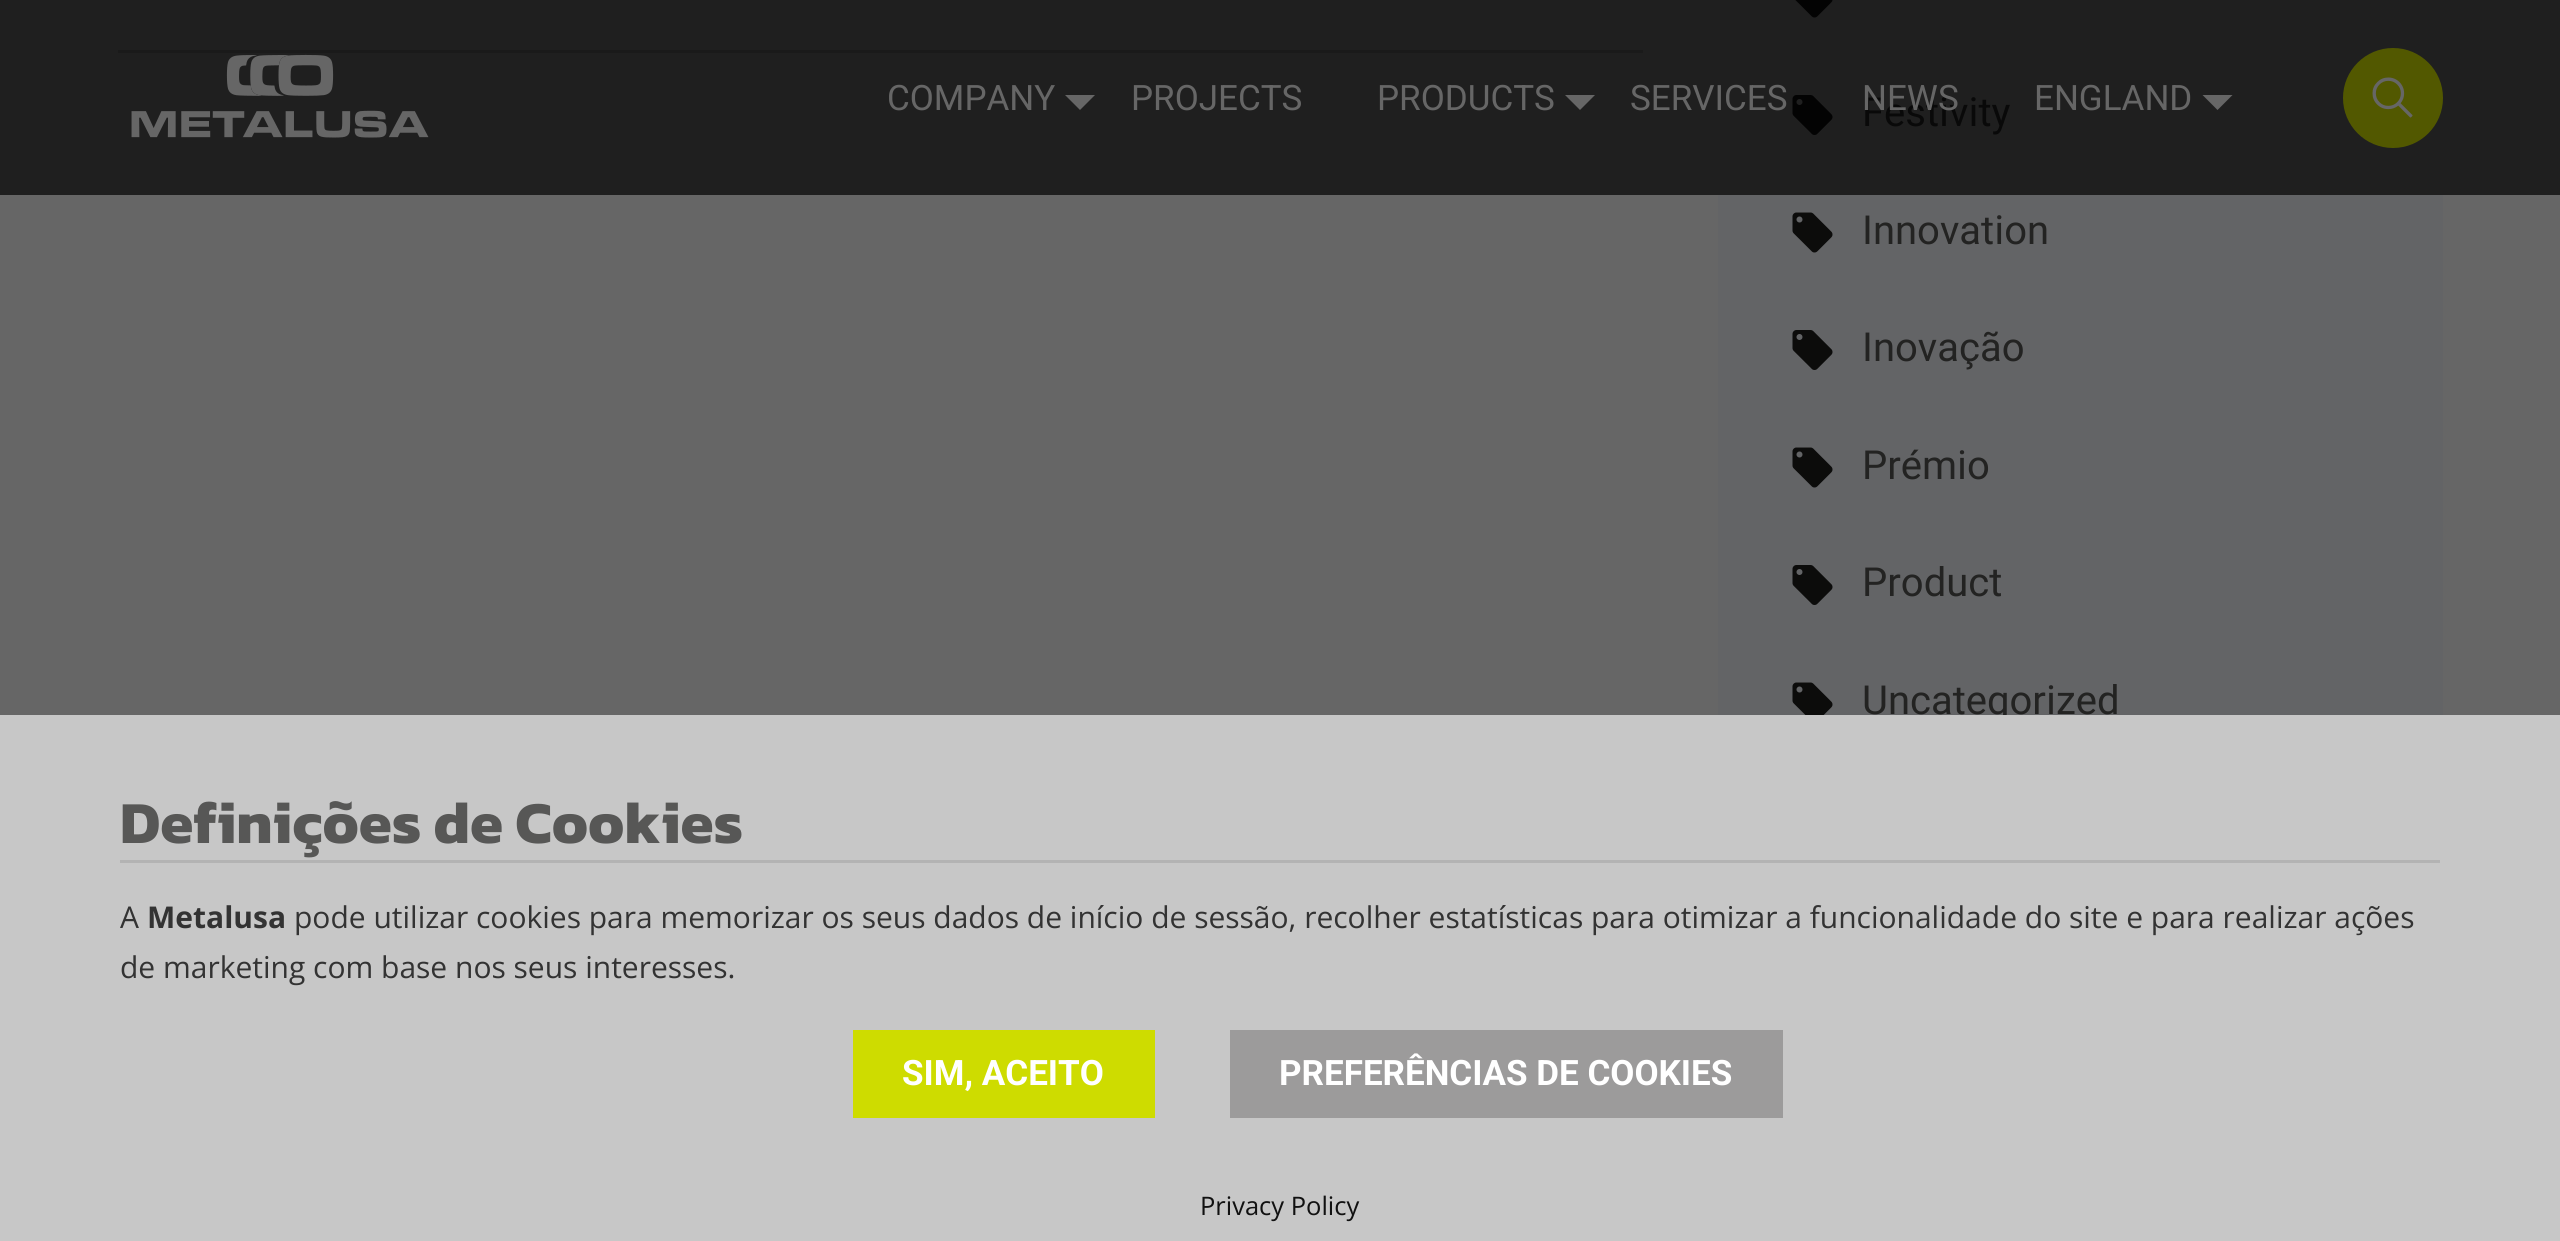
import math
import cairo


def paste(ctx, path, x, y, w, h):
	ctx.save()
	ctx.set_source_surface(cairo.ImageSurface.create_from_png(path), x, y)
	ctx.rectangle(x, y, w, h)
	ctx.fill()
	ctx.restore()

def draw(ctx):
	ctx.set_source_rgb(0.4, 0.4, 0.4)
	ctx.paint()
	ctx.set_source_rgb(0.122, 0.122, 0.122)
	ctx.rectangle(0, 0, 2560, 195)
	ctx.fill()
	paste(ctx, 'media/1.png', 131, 54, 298, 84)
	ctx.select_font_face('Roboto')
	ctx.set_font_size(35)
	ctx.set_source_rgb(0.4, 0.4, 0.4)
	ctx.move_to(887, 110)
	ctx.show_text('COMPANY')
	ctx.new_path()
	ctx.move_to(1065, 95)
	ctx.line_to(1095, 95)
	ctx.line_to(1080, 110)
	ctx.close_path()
	ctx.fill()
	ctx.move_to(1131, 110)
	ctx.show_text('PROJECTS')
	ctx.move_to(1377, 110)
	ctx.show_text('PRODUCTS')
	ctx.new_path()
	ctx.move_to(1565, 95)
	ctx.line_to(1595, 95)
	ctx.line_to(1580, 110)
	ctx.close_path()
	ctx.fill()
	ctx.move_to(1630, 110)
	ctx.show_text('SERVICES')
	ctx.select_font_face('Heebo')
	ctx.set_font_size(40)
	ctx.set_source_rgb(0.039, 0.039, 0.039)
	ctx.move_to(1862, 126)
	ctx.show_text('Festivity')
	ctx.select_font_face('Roboto')
	ctx.set_font_size(35)
	ctx.set_source_rgb(0.4, 0.4, 0.4)
	ctx.move_to(1862, 110)
	ctx.show_text('NEWS')
	ctx.move_to(2034, 110)
	ctx.show_text('ENGLAND')
	ctx.new_path()
	ctx.move_to(2202.5, 95)
	ctx.line_to(2232.5, 95)
	ctx.line_to(2217.5, 110)
	ctx.close_path()
	ctx.fill()
	ctx.set_source_rgb(0.322, 0.345, 0)
	ctx.arc(2393, 98, 50, 0, 2 * math.pi)
	ctx.fill()
	paste(ctx, 'media/2.png', 2372, 77, 41, 41)
	ctx.set_source_rgb(0.102, 0.102, 0.102)
	ctx.rectangle(118, 50, 1525, 3)
	ctx.fill()
	ctx.set_source_rgb(0.388, 0.392, 0.4)
	ctx.rectangle(1718, 195, 725, 520)
	ctx.fill()
	paste(ctx, 'media/3.png', 1795, 0, 38, 18)
	paste(ctx, 'media/4.png', 1792, 95, 41, 40)
	paste(ctx, 'media/5.png', 1792, 212, 41, 41)
	ctx.select_font_face('Heebo')
	ctx.set_font_size(40)
	ctx.set_source_rgb(0.137, 0.137, 0.133)
	ctx.move_to(1862, 244)
	ctx.show_text('Innovation')
	paste(ctx, 'media/6.png', 1792, 330, 41, 40)
	ctx.move_to(1862, 361)
	ctx.show_text('Inovação')
	paste(ctx, 'media/5.png', 1792, 447, 41, 41)
	ctx.move_to(1862, 479)
	ctx.show_text('Prémio')
	paste(ctx, 'media/6.png', 1792, 565, 41, 40)
	ctx.move_to(1862, 596)
	ctx.show_text('Product')
	paste(ctx, 'media/7.png', 1792, 682, 41, 33)
	ctx.move_to(1862, 714)
	ctx.show_text('Uncategorized')
	ctx.set_source_rgb(0.78, 0.78, 0.78)
	ctx.rectangle(0, 715, 2560, 526)
	ctx.fill()
	ctx.set_source_rgb(0.702, 0.702, 0.702)
	ctx.rectangle(120, 860, 2320, 3)
	ctx.fill()
	ctx.select_font_face('Kanit', cairo.FONT_SLANT_NORMAL, cairo.FONT_WEIGHT_BOLD)
	ctx.set_font_size(60)
	ctx.set_source_rgb(0.341, 0.341, 0.337)
	ctx.move_to(120, 843)
	ctx.show_text('Definições de Cookies')
	ctx.select_font_face('Open Sans')
	ctx.set_font_size(30)
	ctx.set_source_rgb(0.2, 0.2, 0.2)
	ctx.move_to(120, 928)
	ctx.show_text('A')
	ctx.select_font_face('Open Sans', cairo.FONT_SLANT_NORMAL, cairo.FONT_WEIGHT_BOLD)
	ctx.move_to(147, 928)
	ctx.show_text('Metalusa')
	ctx.select_font_face('Open Sans')
	ctx.move_to(294, 928)
	ctx.show_text('pode utilizar cookies para memorizar os seus dados de início de sessão, recolher estatísticas para otimizar a funcionalidade do site e para realizar ações')
	ctx.move_to(120, 978)
	ctx.show_text('de marketing com base nos seus interesses.')
	ctx.set_source_rgb(0.808, 0.863, 0)
	ctx.rectangle(853, 1030, 302, 88)
	ctx.fill()
	ctx.select_font_face('Roboto', cairo.FONT_SLANT_NORMAL, cairo.FONT_WEIGHT_BOLD)
	ctx.set_font_size(35)
	ctx.set_source_rgb(1, 1, 1)
	ctx.move_to(902, 1085)
	ctx.show_text('SIM, ACEITO')
	ctx.set_source_rgb(0.612, 0.608, 0.608)
	ctx.rectangle(1230, 1030, 553, 88)
	ctx.fill()
	ctx.set_source_rgb(1, 1, 1)
	ctx.move_to(1279, 1085)
	ctx.show_text('PREFERÊNCIAS DE COOKIES')
	ctx.select_font_face('Open Sans')
	ctx.set_font_size(25.5)
	ctx.set_source_rgb(0.067, 0.067, 0.067)
	ctx.move_to(1200, 1215)
	ctx.show_text('Privacy Policy')


surface = cairo.ImageSurface(cairo.FORMAT_RGB24, 2560, 1241)
ctx = cairo.Context(surface)
options = cairo.FontOptions()
options.set_hint_metrics(cairo.HINT_METRICS_OFF)
options.set_hint_style(cairo.HINT_STYLE_NONE)
ctx.set_font_options(options)
ctx.set_miter_limit(4)
draw(ctx)
surface.write_to_png('image.png')
